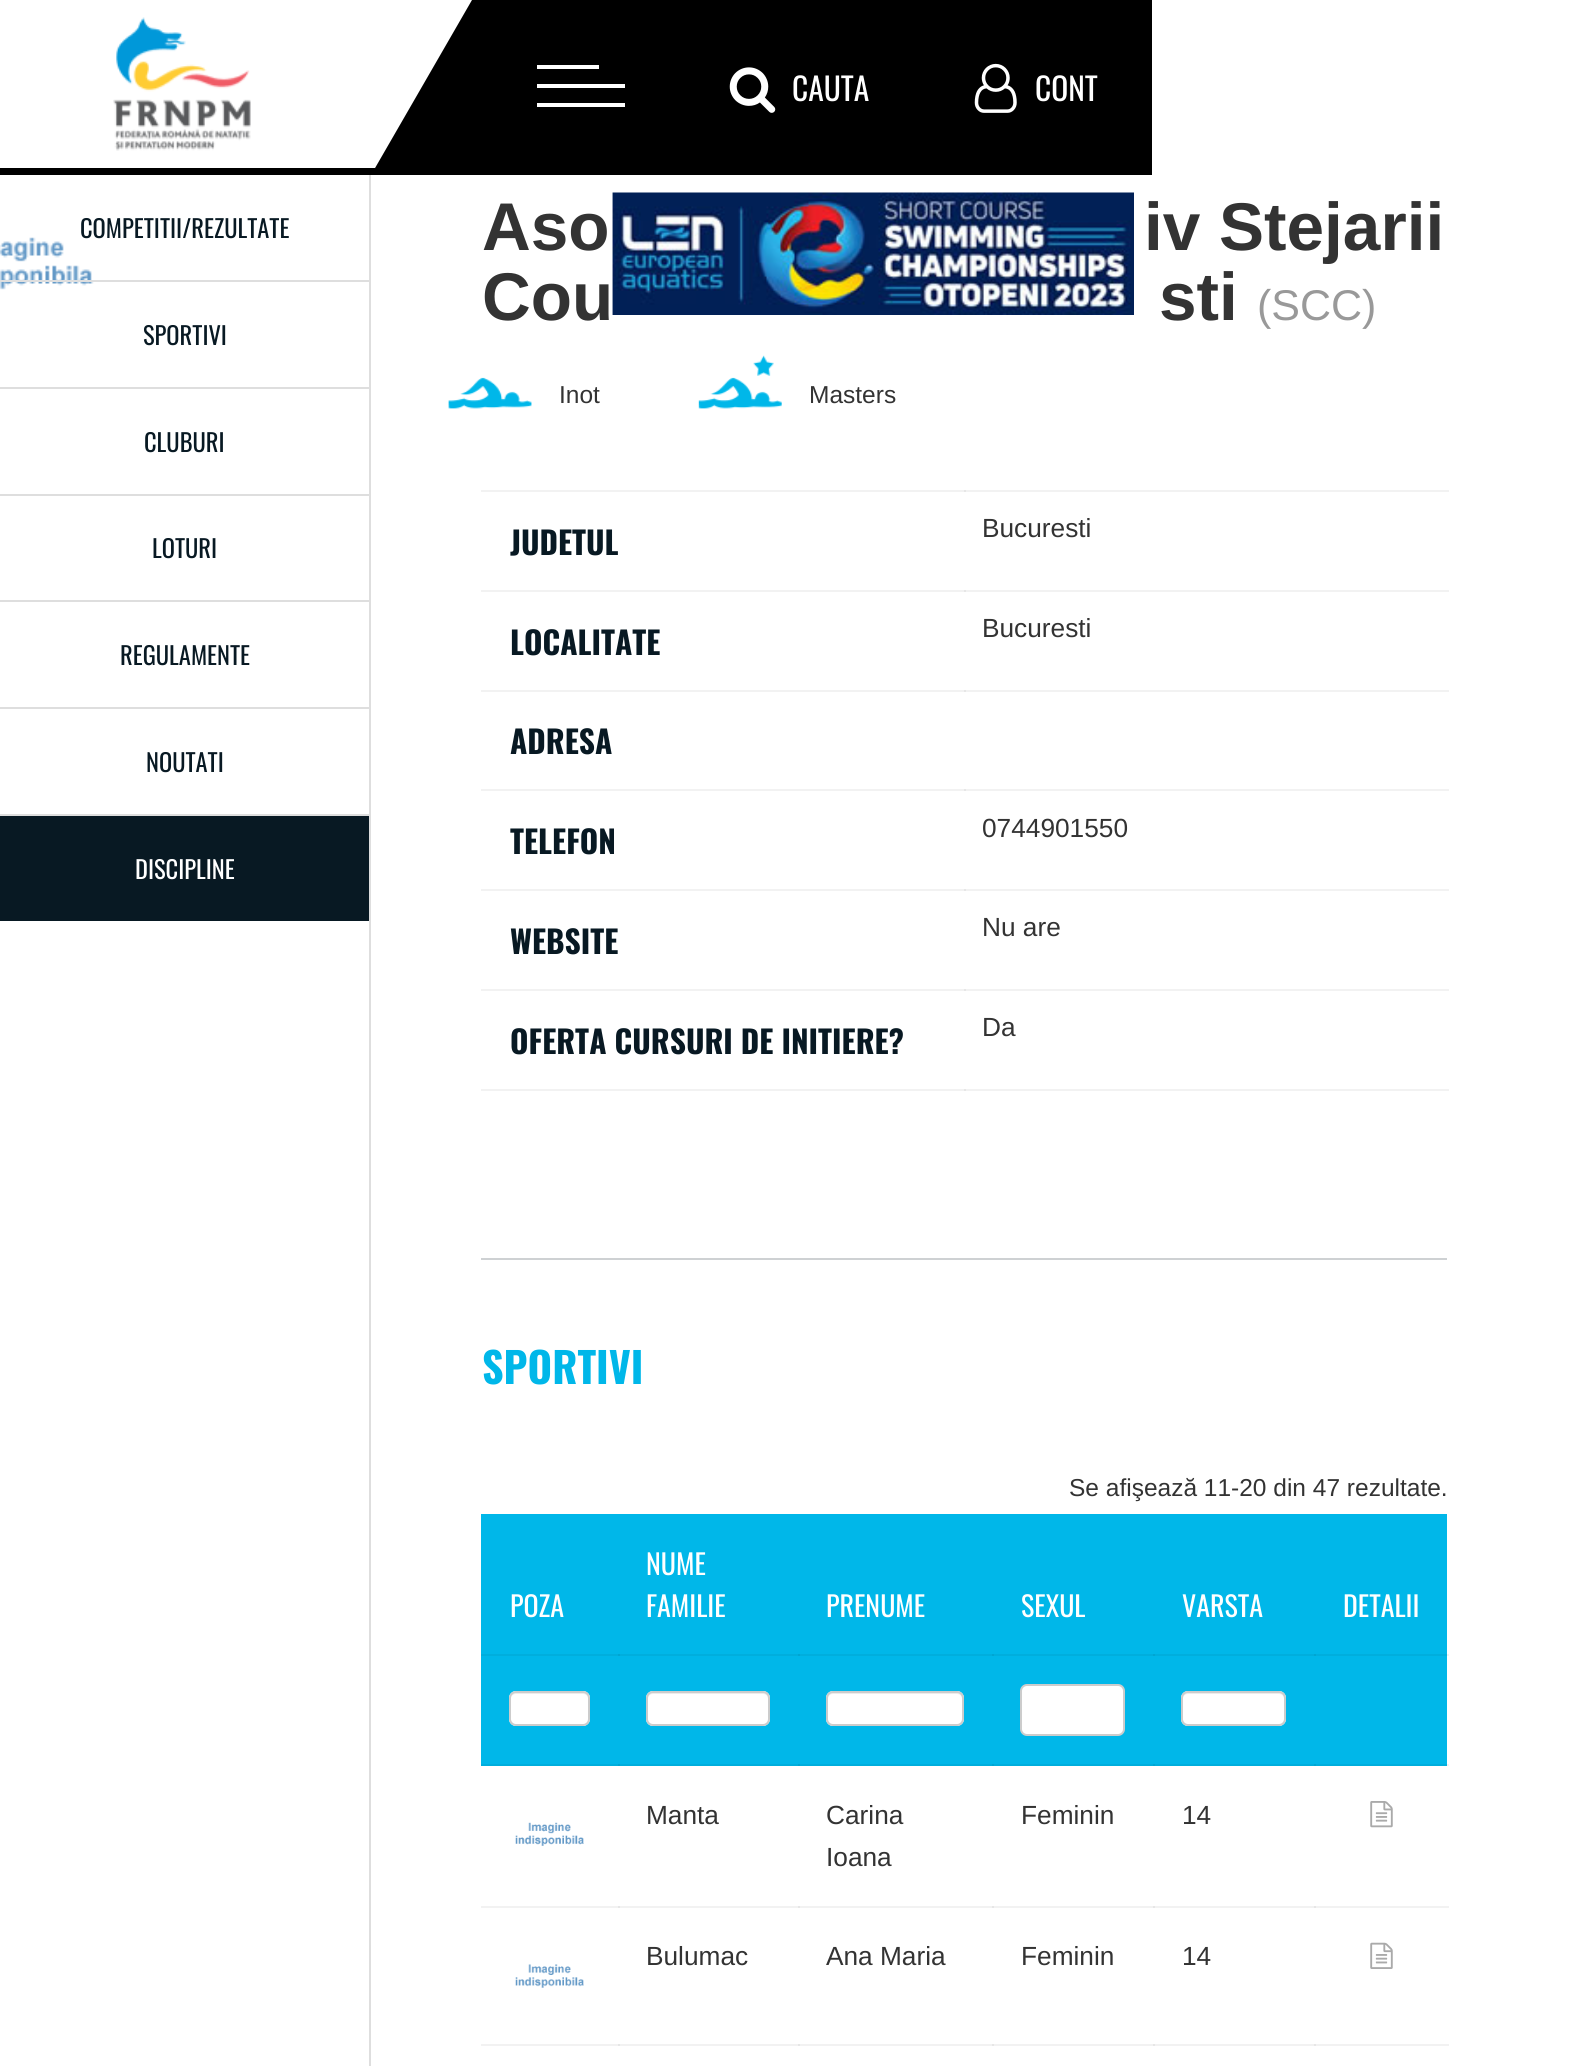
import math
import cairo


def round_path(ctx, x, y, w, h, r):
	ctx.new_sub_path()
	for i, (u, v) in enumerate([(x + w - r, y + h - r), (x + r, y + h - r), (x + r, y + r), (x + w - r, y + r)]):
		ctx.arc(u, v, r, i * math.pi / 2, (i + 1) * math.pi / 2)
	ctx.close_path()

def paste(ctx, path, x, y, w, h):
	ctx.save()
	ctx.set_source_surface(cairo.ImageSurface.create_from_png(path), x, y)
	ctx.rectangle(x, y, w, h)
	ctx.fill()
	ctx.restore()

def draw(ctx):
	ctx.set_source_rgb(1, 1, 1)
	ctx.paint()
	ctx.set_source_rgb(0.949, 0.949, 0.949)
	ctx.rectangle(1447, 1654, 2, 2)
	ctx.rectangle(1447, 1764, 2, 2)
	ctx.rectangle(481, 1906, 968, 2)
	ctx.fill()
	ctx.set_source_rgb(0.902, 0.902, 0.902)
	ctx.rectangle(618, 1906, 2, 2)
	ctx.rectangle(798, 1906, 2, 2)
	ctx.rectangle(992, 1906, 2, 2)
	ctx.rectangle(1153, 1906, 2, 2)
	ctx.fill()
	ctx.set_source_rgb(0.949, 0.949, 0.949)
	ctx.rectangle(481, 2044, 968, 2)
	ctx.fill()
	ctx.set_source_rgb(0.902, 0.902, 0.902)
	ctx.rectangle(618, 2044, 2, 2)
	ctx.rectangle(798, 2044, 2, 2)
	ctx.rectangle(992, 2044, 2, 2)
	ctx.rectangle(1153, 2044, 2, 2)
	ctx.fill()
	ctx.set_source_rgb(0.949, 0.949, 0.949)
	ctx.rectangle(481, 590, 968, 2)
	ctx.rectangle(481, 490, 968, 2)
	ctx.rectangle(481, 690, 968, 2)
	ctx.rectangle(481, 789, 968, 2)
	ctx.rectangle(481, 889, 968, 2)
	ctx.rectangle(481, 989, 968, 2)
	ctx.rectangle(481, 1089, 968, 2)
	ctx.fill()
	ctx.set_source_rgb(0, 0, 0)
	ctx.rectangle(0, 0, 1152, 175)
	ctx.fill()
	ctx.save()
	ctx.rectangle(0, 0, 476, 168)
	ctx.clip()
	ctx.set_source_rgb(1, 1, 1)
	ctx.new_path()
	ctx.move_to(-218, 147)
	ctx.line_to(18, -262)
	ctx.line_to(472, 0)
	ctx.line_to(236, 409)
	ctx.close_path()
	ctx.fill()
	ctx.restore()
	paste(ctx, 'media/1.png', 113, 17, 138, 134)
	ctx.set_source_rgb(1, 1, 1)
	ctx.rectangle(537, 65, 62, 4)
	ctx.rectangle(537, 84, 88, 4)
	ctx.rectangle(537, 103, 88, 4)
	ctx.fill()
	paste(ctx, 'media/2.png', 729, 67, 47, 46)
	ctx.select_font_face('Oswald')
	ctx.set_font_size(31.5)
	ctx.move_to(792, 101)
	ctx.show_text('CAUTA')
	paste(ctx, 'media/3.png', 974, 63, 43, 50)
	ctx.move_to(1035, 101)
	ctx.show_text('CONT')
	paste(ctx, 'media/4.png', 612, 192, 522, 123)
	ctx.set_source_rgb(0.871, 0.871, 0.871)
	ctx.rectangle(369, 175, 2, 1891)
	ctx.fill()
	paste(ctx, 'media/5.png', 0, 237, 94, 53)
	ctx.rectangle(0, 280, 369, 2)
	ctx.fill()
	ctx.set_font_size(24.5)
	ctx.set_source_rgb(0.035, 0.098, 0.137)
	ctx.move_to(80, 238)
	ctx.show_text('COMPETITII/REZULTATE')
	ctx.set_source_rgb(0.871, 0.871, 0.871)
	ctx.rectangle(0, 387, 369, 2)
	ctx.fill()
	ctx.set_source_rgb(0.035, 0.098, 0.137)
	ctx.move_to(143, 345)
	ctx.show_text('SPORTIVI')
	ctx.set_source_rgb(0.871, 0.871, 0.871)
	ctx.rectangle(0, 494, 369, 2)
	ctx.fill()
	ctx.set_source_rgb(0.035, 0.098, 0.137)
	ctx.move_to(144, 452)
	ctx.show_text('CLUBURI')
	ctx.set_source_rgb(0.871, 0.871, 0.871)
	ctx.rectangle(0, 600, 369, 2)
	ctx.fill()
	ctx.set_source_rgb(0.035, 0.098, 0.137)
	ctx.move_to(152, 558)
	ctx.show_text('LOTURI')
	ctx.set_source_rgb(0.871, 0.871, 0.871)
	ctx.rectangle(0, 707, 369, 2)
	ctx.fill()
	ctx.set_source_rgb(0.035, 0.098, 0.137)
	ctx.move_to(120, 665)
	ctx.show_text('REGULAMENTE')
	ctx.set_source_rgb(0.871, 0.871, 0.871)
	ctx.rectangle(0, 814, 369, 2)
	ctx.fill()
	ctx.set_source_rgb(0.035, 0.098, 0.137)
	ctx.move_to(146, 772)
	ctx.show_text('NOUTATI')
	ctx.rectangle(0, 816, 369, 105)
	ctx.fill()
	ctx.set_source_rgb(1, 1, 1)
	ctx.move_to(135, 879)
	ctx.show_text('DISCIPLINE')
	ctx.select_font_face('Liberation Sans', cairo.FONT_SLANT_NORMAL, cairo.FONT_WEIGHT_BOLD)
	ctx.set_font_size(67.5)
	ctx.set_source_rgb(0.2, 0.2, 0.2)
	for x, y, s in [
		(482, 250, 'Aso'),
		(1144, 250, 'iv Stejarii'),
		(482, 320, 'Cou'),
		(1159, 320, 'sti'),
	]:
		ctx.move_to(x, y)
		ctx.show_text(s)
	ctx.select_font_face('Liberation Sans')
	ctx.set_font_size(43)
	ctx.set_source_rgb(0.6, 0.6, 0.6)
	ctx.move_to(1257, 320)
	ctx.show_text('(SCC)')
	paste(ctx, 'media/6.png', 448, 377, 84, 32)
	ctx.set_font_size(24.5)
	ctx.set_source_rgb(0.2, 0.2, 0.2)
	ctx.move_to(559, 403)
	ctx.show_text('Inot')
	paste(ctx, 'media/7.png', 698, 355, 84, 54)
	ctx.move_to(809, 403)
	ctx.show_text('Masters')
	ctx.select_font_face('Oswald', cairo.FONT_SLANT_NORMAL, cairo.FONT_WEIGHT_BOLD)
	ctx.set_font_size(31.5)
	ctx.set_source_rgb(0.035, 0.098, 0.137)
	ctx.move_to(510, 555)
	ctx.show_text('JUDETUL')
	ctx.set_source_rgb(0.902, 0.902, 0.902)
	ctx.rectangle(964, 490, 2, 2)
	ctx.fill()
	ctx.rectangle(964, 590, 2, 2)
	ctx.fill()
	ctx.select_font_face('Liberation Sans')
	ctx.set_font_size(26.25)
	ctx.set_source_rgb(0.2, 0.2, 0.2)
	ctx.move_to(982, 537)
	ctx.show_text('Bucuresti')
	ctx.select_font_face('Oswald', cairo.FONT_SLANT_NORMAL, cairo.FONT_WEIGHT_BOLD)
	ctx.set_font_size(31.5)
	ctx.set_source_rgb(0.035, 0.098, 0.137)
	ctx.move_to(510, 655)
	ctx.show_text('LOCALITATE')
	ctx.set_source_rgb(0.902, 0.902, 0.902)
	ctx.rectangle(964, 690, 2, 2)
	ctx.fill()
	ctx.select_font_face('Liberation Sans')
	ctx.set_font_size(26.25)
	ctx.set_source_rgb(0.2, 0.2, 0.2)
	ctx.move_to(982, 637)
	ctx.show_text('Bucuresti')
	ctx.select_font_face('Oswald', cairo.FONT_SLANT_NORMAL, cairo.FONT_WEIGHT_BOLD)
	ctx.set_font_size(31.5)
	ctx.set_source_rgb(0.035, 0.098, 0.137)
	ctx.move_to(510, 754)
	ctx.show_text('ADRESA')
	ctx.set_source_rgb(0.902, 0.902, 0.902)
	ctx.rectangle(964, 789, 2, 2)
	ctx.fill()
	ctx.set_source_rgb(0.035, 0.098, 0.137)
	ctx.move_to(510, 854)
	ctx.show_text('TELEFON')
	ctx.set_source_rgb(0.902, 0.902, 0.902)
	ctx.rectangle(964, 889, 2, 2)
	ctx.fill()
	ctx.select_font_face('Liberation Sans')
	ctx.set_font_size(26.25)
	ctx.set_source_rgb(0.2, 0.2, 0.2)
	ctx.move_to(982, 837)
	ctx.show_text('0744901550')
	ctx.select_font_face('Oswald', cairo.FONT_SLANT_NORMAL, cairo.FONT_WEIGHT_BOLD)
	ctx.set_font_size(31.5)
	ctx.set_source_rgb(0.035, 0.098, 0.137)
	ctx.move_to(510, 954)
	ctx.show_text('WEBSITE')
	ctx.set_source_rgb(0.902, 0.902, 0.902)
	ctx.rectangle(964, 989, 2, 2)
	ctx.fill()
	ctx.select_font_face('Liberation Sans')
	ctx.set_font_size(26.25)
	ctx.set_source_rgb(0.2, 0.2, 0.2)
	ctx.move_to(982, 936)
	ctx.show_text('Nu are')
	ctx.select_font_face('Oswald', cairo.FONT_SLANT_NORMAL, cairo.FONT_WEIGHT_BOLD)
	ctx.set_font_size(31.5)
	ctx.set_source_rgb(0.035, 0.098, 0.137)
	ctx.move_to(510, 1054)
	ctx.show_text('OFERTA CURSURI DE INITIERE?')
	ctx.set_source_rgb(0.902, 0.902, 0.902)
	ctx.rectangle(964, 1089, 2, 2)
	ctx.fill()
	ctx.select_font_face('Liberation Sans')
	ctx.set_font_size(26.25)
	ctx.set_source_rgb(0.2, 0.2, 0.2)
	ctx.move_to(982, 1036)
	ctx.show_text('Da')
	ctx.set_source_rgb(0.808, 0.82, 0.827)
	ctx.rectangle(481, 1258, 966, 2)
	ctx.fill()
	ctx.select_font_face('Oswald', cairo.FONT_SLANT_NORMAL, cairo.FONT_WEIGHT_BOLD)
	ctx.set_font_size(42)
	ctx.set_source_rgb(0, 0.718, 0.914)
	ctx.move_to(482, 1384)
	ctx.show_text('SPORTIVI')
	ctx.select_font_face('Liberation Sans')
	ctx.set_font_size(24.5)
	ctx.set_source_rgb(0.2, 0.2, 0.2)
	ctx.move_to(1069, 1496)
	ctx.show_text('Se afişează 11-20 din 47 rezultate.')
	ctx.set_source_rgb(0, 0.718, 0.914)
	ctx.rectangle(481, 1514, 966, 250)
	ctx.fill()
	ctx.set_source_rgb(0, 0.682, 0.867)
	ctx.rectangle(481, 1654, 966, 2)
	ctx.fill()
	ctx.set_source_rgb(0, 0.647, 0.824)
	ctx.rectangle(618, 1654, 2, 2)
	ctx.rectangle(798, 1654, 2, 2)
	ctx.rectangle(992, 1654, 2, 2)
	ctx.rectangle(1153, 1654, 2, 2)
	ctx.rectangle(1314, 1654, 2, 2)
	ctx.fill()
	ctx.set_source_rgb(0, 0.682, 0.867)
	ctx.rectangle(481, 1764, 966, 2)
	ctx.fill()
	ctx.set_source_rgb(0, 0.647, 0.824)
	ctx.rectangle(618, 1764, 2, 2)
	ctx.rectangle(798, 1764, 2, 2)
	ctx.rectangle(992, 1764, 2, 2)
	ctx.rectangle(1153, 1764, 2, 2)
	ctx.rectangle(1314, 1764, 2, 2)
	ctx.fill()
	ctx.select_font_face('Oswald')
	ctx.set_font_size(28)
	ctx.set_source_rgb(1, 1, 1)
	for x, y, s in [
		(510, 1617, 'POZA'),
		(646, 1575, 'NUME'),
		(646, 1617, 'FAMILIE'),
		(826, 1617, 'PRENUME'),
		(1021, 1617, 'SEXUL'),
		(1182, 1617, 'VARSTA'),
		(1343, 1617, 'DETALII'),
	]:
		ctx.move_to(x, y)
		ctx.show_text(s)
	round_path(ctx, 509, 1691, 81, 35, 7)
	ctx.fill()
	ctx.set_source_rgb(0.925, 0.925, 0.925)
	ctx.new_path()
	ctx.move_to(516, 1694)
	ctx.line_to(583, 1694)
	ctx.curve_to(586, 1694, 588, 1696, 588, 1699)
	ctx.curve_to(588, 1689, 580, 1692, 572, 1692)
	ctx.line_to(527, 1692)
	ctx.curve_to(519, 1692, 511, 1689, 511, 1699)
	ctx.curve_to(511, 1696, 513, 1694, 516, 1694)
	ctx.close_path()
	ctx.fill()
	round_path(ctx, 510, 1692, 79, 33, 6)
	ctx.set_source_rgb(0.8, 0.8, 0.8)
	ctx.stroke()
	ctx.set_source_rgb(1, 1, 1)
	round_path(ctx, 646, 1691, 124, 35, 7)
	ctx.fill()
	ctx.set_source_rgb(0.925, 0.925, 0.925)
	ctx.new_path()
	ctx.move_to(653, 1694)
	ctx.line_to(763, 1694)
	ctx.curve_to(766, 1694, 768, 1696, 768, 1699)
	ctx.line_to(768, 1697)
	ctx.curve_to(768, 1694, 766, 1692, 763, 1692)
	ctx.line_to(653, 1692)
	ctx.curve_to(650, 1692, 648, 1694, 648, 1697)
	ctx.line_to(648, 1699)
	ctx.curve_to(648, 1696, 650, 1694, 653, 1694)
	ctx.close_path()
	ctx.fill()
	round_path(ctx, 647, 1692, 122, 33, 6)
	ctx.set_source_rgb(0.8, 0.8, 0.8)
	ctx.stroke()
	ctx.set_source_rgb(1, 1, 1)
	round_path(ctx, 826, 1691, 138, 35, 7)
	ctx.fill()
	ctx.set_source_rgb(0.925, 0.925, 0.925)
	ctx.new_path()
	ctx.move_to(833, 1694)
	ctx.line_to(957, 1694)
	ctx.curve_to(960, 1694, 962, 1696, 962, 1699)
	ctx.line_to(962, 1720)
	ctx.line_to(962, 1723)
	ctx.curve_to(962, 1722, 963, 1720, 963, 1719)
	ctx.line_to(963, 1697)
	ctx.curve_to(963, 1694, 961, 1692, 958, 1692)
	ctx.line_to(833, 1692)
	ctx.curve_to(830, 1692, 828, 1694, 828, 1697)
	ctx.line_to(828, 1699)
	ctx.curve_to(828, 1696, 830, 1694, 833, 1694)
	ctx.close_path()
	ctx.fill()
	round_path(ctx, 827, 1692, 136, 33, 6)
	ctx.set_source_rgb(0.8, 0.8, 0.8)
	ctx.stroke()
	ctx.set_source_rgb(1, 1, 1)
	round_path(ctx, 1021, 1685, 103, 50, 6)
	ctx.fill_preserve()
	ctx.set_source_rgb(0.8, 0.8, 0.8)
	ctx.stroke()
	ctx.set_source_rgb(1, 1, 1)
	round_path(ctx, 1181, 1691, 105, 35, 7)
	ctx.fill()
	ctx.set_source_rgb(0.925, 0.925, 0.925)
	ctx.new_path()
	ctx.move_to(1188, 1694)
	ctx.line_to(1279, 1694)
	ctx.curve_to(1282, 1694, 1284, 1696, 1284, 1699)
	ctx.line_to(1284, 1720)
	ctx.line_to(1284, 1723)
	ctx.curve_to(1286, 1720, 1285, 1711, 1285, 1708)
	ctx.curve_to(1285, 1704, 1287, 1692, 1280, 1692)
	ctx.line_to(1203, 1692)
	ctx.curve_to(1195, 1692, 1183, 1688, 1183, 1699)
	ctx.curve_to(1183, 1696, 1185, 1694, 1188, 1694)
	ctx.close_path()
	ctx.fill()
	round_path(ctx, 1182, 1692, 103, 33, 6)
	ctx.set_source_rgb(0.8, 0.8, 0.8)
	ctx.stroke()
	ctx.select_font_face('Liberation Sans')
	ctx.set_font_size(26.25)
	ctx.set_source_rgb(0.2, 0.2, 0.2)
	for x, y, s in [
		(646, 1824, 'Manta'),
		(826, 1824, 'Carina'),
		(826, 1866, 'Ioana'),
		(1021, 1824, 'Feminin'),
		(1182, 1824, '14'),
	]:
		ctx.move_to(x, y)
		ctx.show_text(s)
	ctx.set_source_rgb(0.902, 0.902, 0.902)
	ctx.rectangle(1314, 1906, 2, 2)
	ctx.fill()
	paste(ctx, 'media/8.png', 1370, 1801, 23, 27)
	paste(ctx, 'media/9.png', 515, 1822, 69, 24)
	ctx.set_source_rgb(0.2, 0.2, 0.2)
	for x, y, s in [
		(646, 1965, 'Bulumac'),
		(826, 1965, 'Ana Maria'),
		(1021, 1965, 'Feminin'),
		(1182, 1965, '14'),
	]:
		ctx.move_to(x, y)
		ctx.show_text(s)
	ctx.set_source_rgb(0.902, 0.902, 0.902)
	ctx.rectangle(1314, 2044, 2, 2)
	ctx.fill()
	paste(ctx, 'media/10.png', 1370, 1942, 23, 27)
	paste(ctx, 'media/11.png', 515, 1964, 69, 24)


surface = cairo.ImageSurface(cairo.FORMAT_RGB24, 1584, 2066)
ctx = cairo.Context(surface)
options = cairo.FontOptions()
options.set_hint_metrics(cairo.HINT_METRICS_OFF)
options.set_hint_style(cairo.HINT_STYLE_NONE)
ctx.set_font_options(options)
ctx.set_miter_limit(4)
draw(ctx)
surface.write_to_png('image.png')
